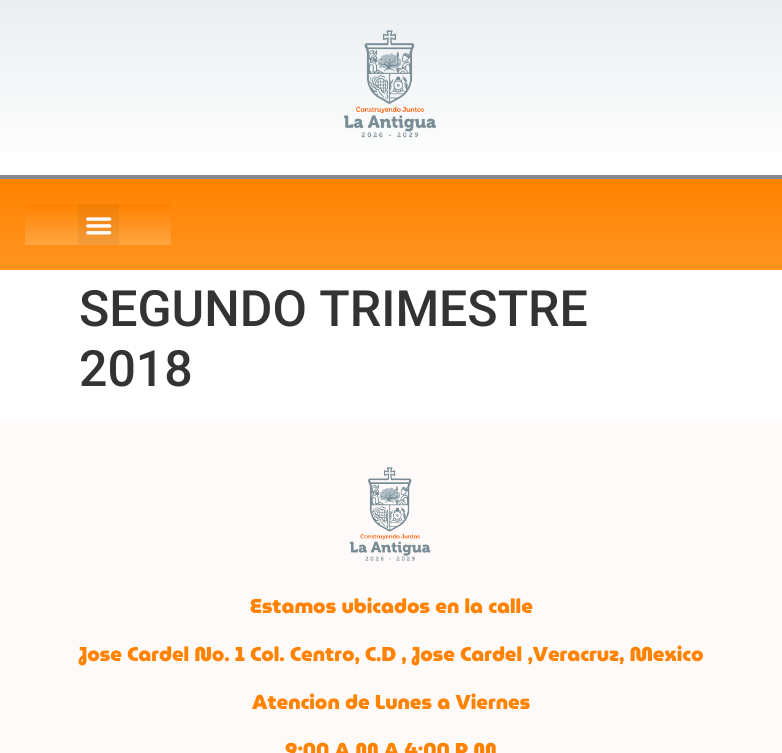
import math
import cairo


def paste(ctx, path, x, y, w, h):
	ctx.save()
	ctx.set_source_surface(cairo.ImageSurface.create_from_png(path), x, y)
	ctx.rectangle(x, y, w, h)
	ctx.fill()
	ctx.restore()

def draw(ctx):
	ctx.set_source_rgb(1, 1, 1)
	ctx.paint()
	gradient = cairo.LinearGradient(391, 0, 391, 175)
	gradient.add_color_stop_rgba(0, 0.922, 0.933, 0.941, 1)
	gradient.add_color_stop_rgba(1, 1, 1, 1, 1)
	ctx.set_source(gradient)
	ctx.rectangle(0, 0, 782, 153)
	ctx.fill()
	paste(ctx, 'media/1.png', 343, 30, 93, 108)
	gradient = cairo.LinearGradient(391, 179, 391, 270)
	gradient.add_color_stop_rgba(0, 1, 0.51, 0, 1)
	gradient.add_color_stop_rgba(1, 1, 0.58, 0.125, 1)
	ctx.set_source(gradient)
	ctx.rectangle(0, 179, 782, 91)
	ctx.fill()
	ctx.set_source_rgb(0.514, 0.541, 0.565)
	ctx.rectangle(0, 175, 782, 4)
	ctx.fill()
	gradient = cairo.LinearGradient(98, 204, 98, 245)
	gradient.add_color_stop_rgba(0, 1, 0.51, 0, 1)
	gradient.add_color_stop_rgba(1, 1, 0.647, 0.251, 1)
	ctx.set_source(gradient)
	ctx.rectangle(25, 204, 146, 41)
	ctx.fill()
	ctx.set_source_rgba(0, 0, 0, 0.05)
	ctx.rectangle(78, 204, 41, 41)
	ctx.fill()
	paste(ctx, 'media/2.png', 86, 217, 26, 18)
	ctx.select_font_face('Roboto Medium')
	ctx.set_font_size(50)
	ctx.set_source_rgb(0.2, 0.2, 0.2)
	ctx.move_to(79, 326)
	ctx.show_text('SEGUNDO TRIMESTRE')
	ctx.move_to(79, 386)
	ctx.show_text('2018')
	ctx.set_source_rgb(1, 0.98, 0.98)
	ctx.rectangle(0, 420, 782, 333)
	ctx.fill()
	paste(ctx, 'media/3.png', 349, 467, 82, 94)
	ctx.select_font_face('MuseoModerno Black')
	ctx.set_font_size(20)
	ctx.set_source_rgb(1, 0.51, 0)
	for x, y, s in [
		(250, 613, 'Estamos ubicados en la calle'),
		(79, 661, 'Jose Cardel No. 1 Col. Centro, C.D , Jose Cardel ,Veracruz, Mexico'),
		(252, 709, 'Atencion de Lunes a Viernes'),
		(285, 757, '9:00 A.M A 4:00 P.M'),
	]:
		ctx.move_to(x, y)
		ctx.show_text(s)


surface = cairo.ImageSurface(cairo.FORMAT_RGB24, 782, 753)
ctx = cairo.Context(surface)
options = cairo.FontOptions()
options.set_hint_metrics(cairo.HINT_METRICS_OFF)
options.set_hint_style(cairo.HINT_STYLE_NONE)
ctx.set_font_options(options)
ctx.set_miter_limit(4)
draw(ctx)
surface.write_to_png('image.png')
